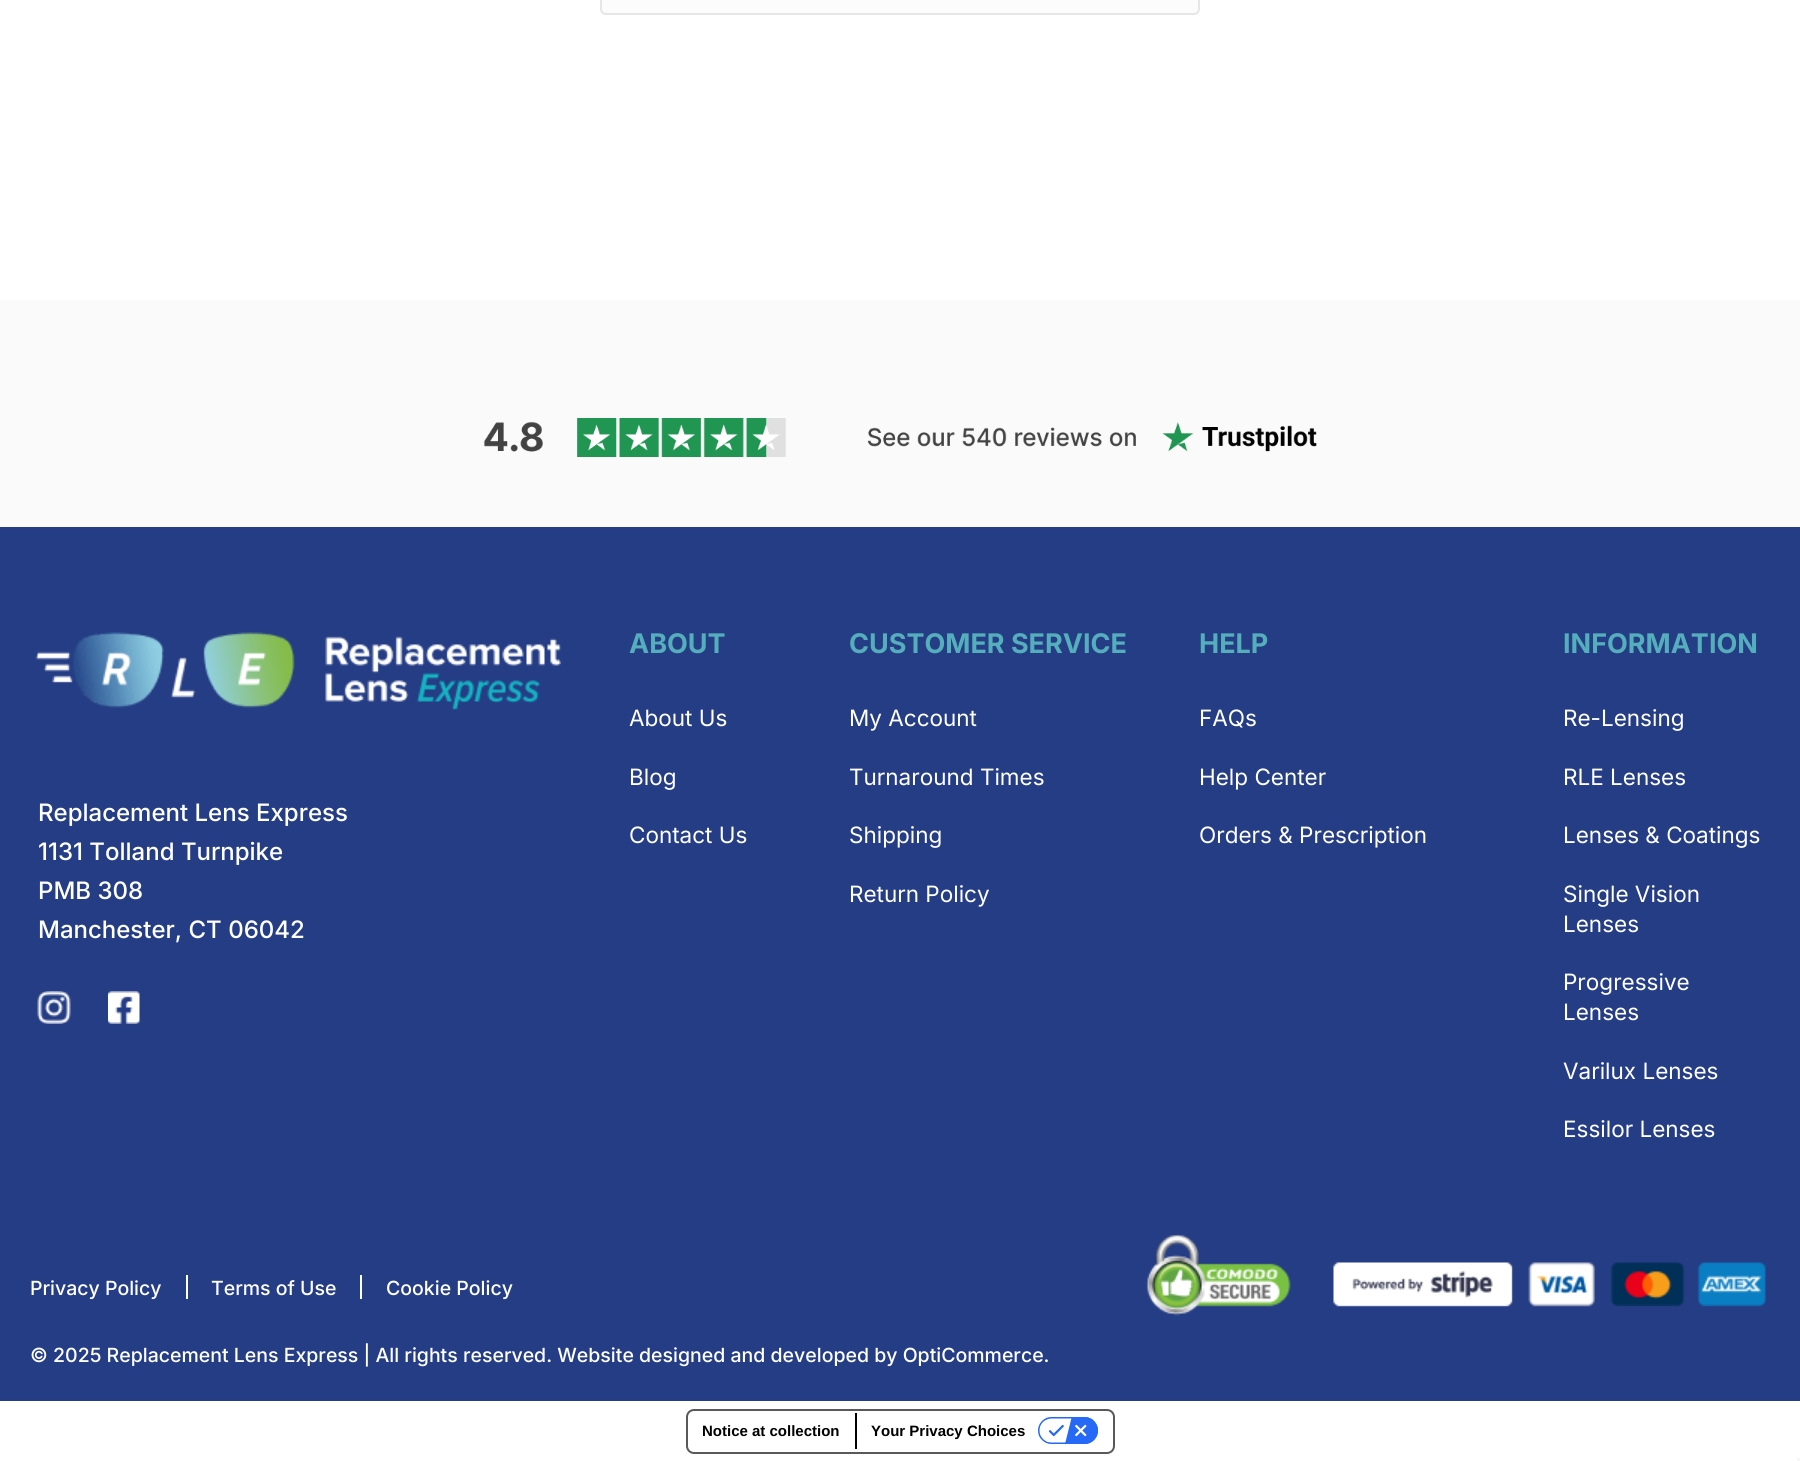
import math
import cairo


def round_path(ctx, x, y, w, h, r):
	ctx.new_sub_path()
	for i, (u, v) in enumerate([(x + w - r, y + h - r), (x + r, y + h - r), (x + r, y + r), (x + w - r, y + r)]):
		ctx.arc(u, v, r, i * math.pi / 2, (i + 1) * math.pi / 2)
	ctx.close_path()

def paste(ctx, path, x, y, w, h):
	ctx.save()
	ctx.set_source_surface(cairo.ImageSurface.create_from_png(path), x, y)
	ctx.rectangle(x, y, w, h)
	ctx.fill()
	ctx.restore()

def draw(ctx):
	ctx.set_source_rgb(1, 1, 1)
	ctx.paint()
	ctx.set_source_rgb(0.988, 0.988, 0.988)
	round_path(ctx, 601, -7, 598, 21, 5)
	ctx.fill_preserve()
	ctx.set_source_rgb(0.902, 0.902, 0.902)
	ctx.stroke()
	ctx.set_source_rgb(0.98, 0.98, 0.98)
	ctx.rectangle(0, 300, 1800, 227)
	ctx.fill()
	paste(ctx, 'media/1.png', 483, 418, 834, 39)
	ctx.set_source_rgb(0.145, 0.239, 0.522)
	ctx.rectangle(0, 527, 1800, 874)
	ctx.fill()
	paste(ctx, 'media/2.png', 35, 632, 526, 78)
	ctx.select_font_face('Inter Medium')
	ctx.set_font_size(24)
	ctx.set_source_rgb(1, 1, 1)
	for x, y, s in [
		(38, 821, 'Replacement Lens Express'),
		(38, 860, '1131 Tolland Turnpike'),
		(38, 899, 'PMB 308'),
		(38, 938, 'Manchester, CT 06042'),
	]:
		ctx.move_to(x, y)
		ctx.show_text(s)
	paste(ctx, 'media/3.png', 37, 991, 34, 33)
	paste(ctx, 'media/4.png', 108, 991, 32, 33)
	ctx.select_font_face('Inter', cairo.FONT_SLANT_NORMAL, cairo.FONT_WEIGHT_BOLD)
	ctx.set_font_size(27)
	ctx.set_source_rgb(0.333, 0.682, 0.737)
	ctx.move_to(629, 653)
	ctx.show_text('ABOUT')
	ctx.select_font_face('Inter')
	ctx.set_font_size(22.5)
	ctx.set_source_rgb(1, 1, 1)
	for x, y, s in [
		(629, 726, 'About Us'),
		(629, 785, 'Blog'),
		(629, 843, 'Contact Us'),
	]:
		ctx.move_to(x, y)
		ctx.show_text(s)
	ctx.select_font_face('Inter', cairo.FONT_SLANT_NORMAL, cairo.FONT_WEIGHT_BOLD)
	ctx.set_font_size(27)
	ctx.set_source_rgb(0.333, 0.682, 0.737)
	ctx.move_to(849, 653)
	ctx.show_text('CUSTOMER SERVICE')
	ctx.select_font_face('Inter')
	ctx.set_font_size(22.5)
	ctx.set_source_rgb(1, 1, 1)
	for x, y, s in [
		(849, 726, 'My Account'),
		(849, 785, 'Turnaround Times'),
		(849, 843, 'Shipping'),
		(849, 902, 'Return Policy'),
	]:
		ctx.move_to(x, y)
		ctx.show_text(s)
	ctx.select_font_face('Inter', cairo.FONT_SLANT_NORMAL, cairo.FONT_WEIGHT_BOLD)
	ctx.set_font_size(27)
	ctx.set_source_rgb(0.333, 0.682, 0.737)
	ctx.move_to(1199, 653)
	ctx.show_text('HELP')
	ctx.select_font_face('Inter')
	ctx.set_font_size(22.5)
	ctx.set_source_rgb(1, 1, 1)
	for x, y, s in [
		(1199, 726, 'FAQs'),
		(1199, 785, 'Help Center'),
		(1199, 843, 'Orders & Prescription'),
	]:
		ctx.move_to(x, y)
		ctx.show_text(s)
	ctx.select_font_face('Inter', cairo.FONT_SLANT_NORMAL, cairo.FONT_WEIGHT_BOLD)
	ctx.set_font_size(27)
	ctx.set_source_rgb(0.333, 0.682, 0.737)
	ctx.move_to(1563, 653)
	ctx.show_text('INFORMATION')
	ctx.select_font_face('Inter')
	ctx.set_font_size(22.5)
	ctx.set_source_rgb(1, 1, 1)
	for x, y, s in [
		(1563, 726, 'Re-Lensing'),
		(1563, 785, 'RLE Lenses'),
		(1563, 843, 'Lenses & Coatings'),
		(1563, 902, 'Single Vision'),
		(1563, 932, 'Lenses'),
		(1563, 990, 'Progressive'),
		(1563, 1020, 'Lenses'),
		(1563, 1079, 'Varilux Lenses'),
		(1563, 1137, 'Essilor Lenses'),
	]:
		ctx.move_to(x, y)
		ctx.show_text(s)
	ctx.select_font_face('Inter Medium')
	ctx.set_font_size(19.5)
	ctx.move_to(30, 1295)
	ctx.show_text('Privacy Policy')
	ctx.rectangle(186, 1275, 2, 24)
	ctx.fill()
	ctx.move_to(211, 1295)
	ctx.show_text('Terms of Use')
	ctx.rectangle(360, 1275, 2, 24)
	ctx.fill()
	ctx.move_to(386, 1295)
	ctx.show_text('Cookie Policy')
	paste(ctx, 'media/5.png', 1146, 1234, 620, 82)
	ctx.move_to(30, 1362)
	ctx.show_text('© 2025 Replacement Lens Express | All rights reserved. Website designed and developed by OptiCommerce.')
	round_path(ctx, 687, 1410, 427, 43, 7)
	ctx.set_source_rgb(0.349, 0.349, 0.349)
	ctx.stroke()
	ctx.select_font_face('Liberation Sans', cairo.FONT_SLANT_NORMAL, cairo.FONT_WEIGHT_BOLD)
	ctx.set_font_size(15)
	ctx.set_source_rgb(0, 0, 0)
	ctx.move_to(702, 1436)
	ctx.show_text('Notice at collection')
	ctx.rectangle(855, 1413, 2, 36)
	ctx.fill()
	ctx.move_to(871, 1436)
	ctx.show_text('Your Privacy Choices')
	paste(ctx, 'media/6.png', 1038, 1417, 60, 27)
	ctx.set_source_rgb(0.961, 0.961, 0.961)
	ctx.rectangle(1797, 1458, 3, 3)
	ctx.fill()


surface = cairo.ImageSurface(cairo.FORMAT_RGB24, 1800, 1461)
ctx = cairo.Context(surface)
options = cairo.FontOptions()
options.set_hint_metrics(cairo.HINT_METRICS_OFF)
options.set_hint_style(cairo.HINT_STYLE_NONE)
ctx.set_font_options(options)
ctx.set_miter_limit(4)
draw(ctx)
surface.write_to_png('image.png')
